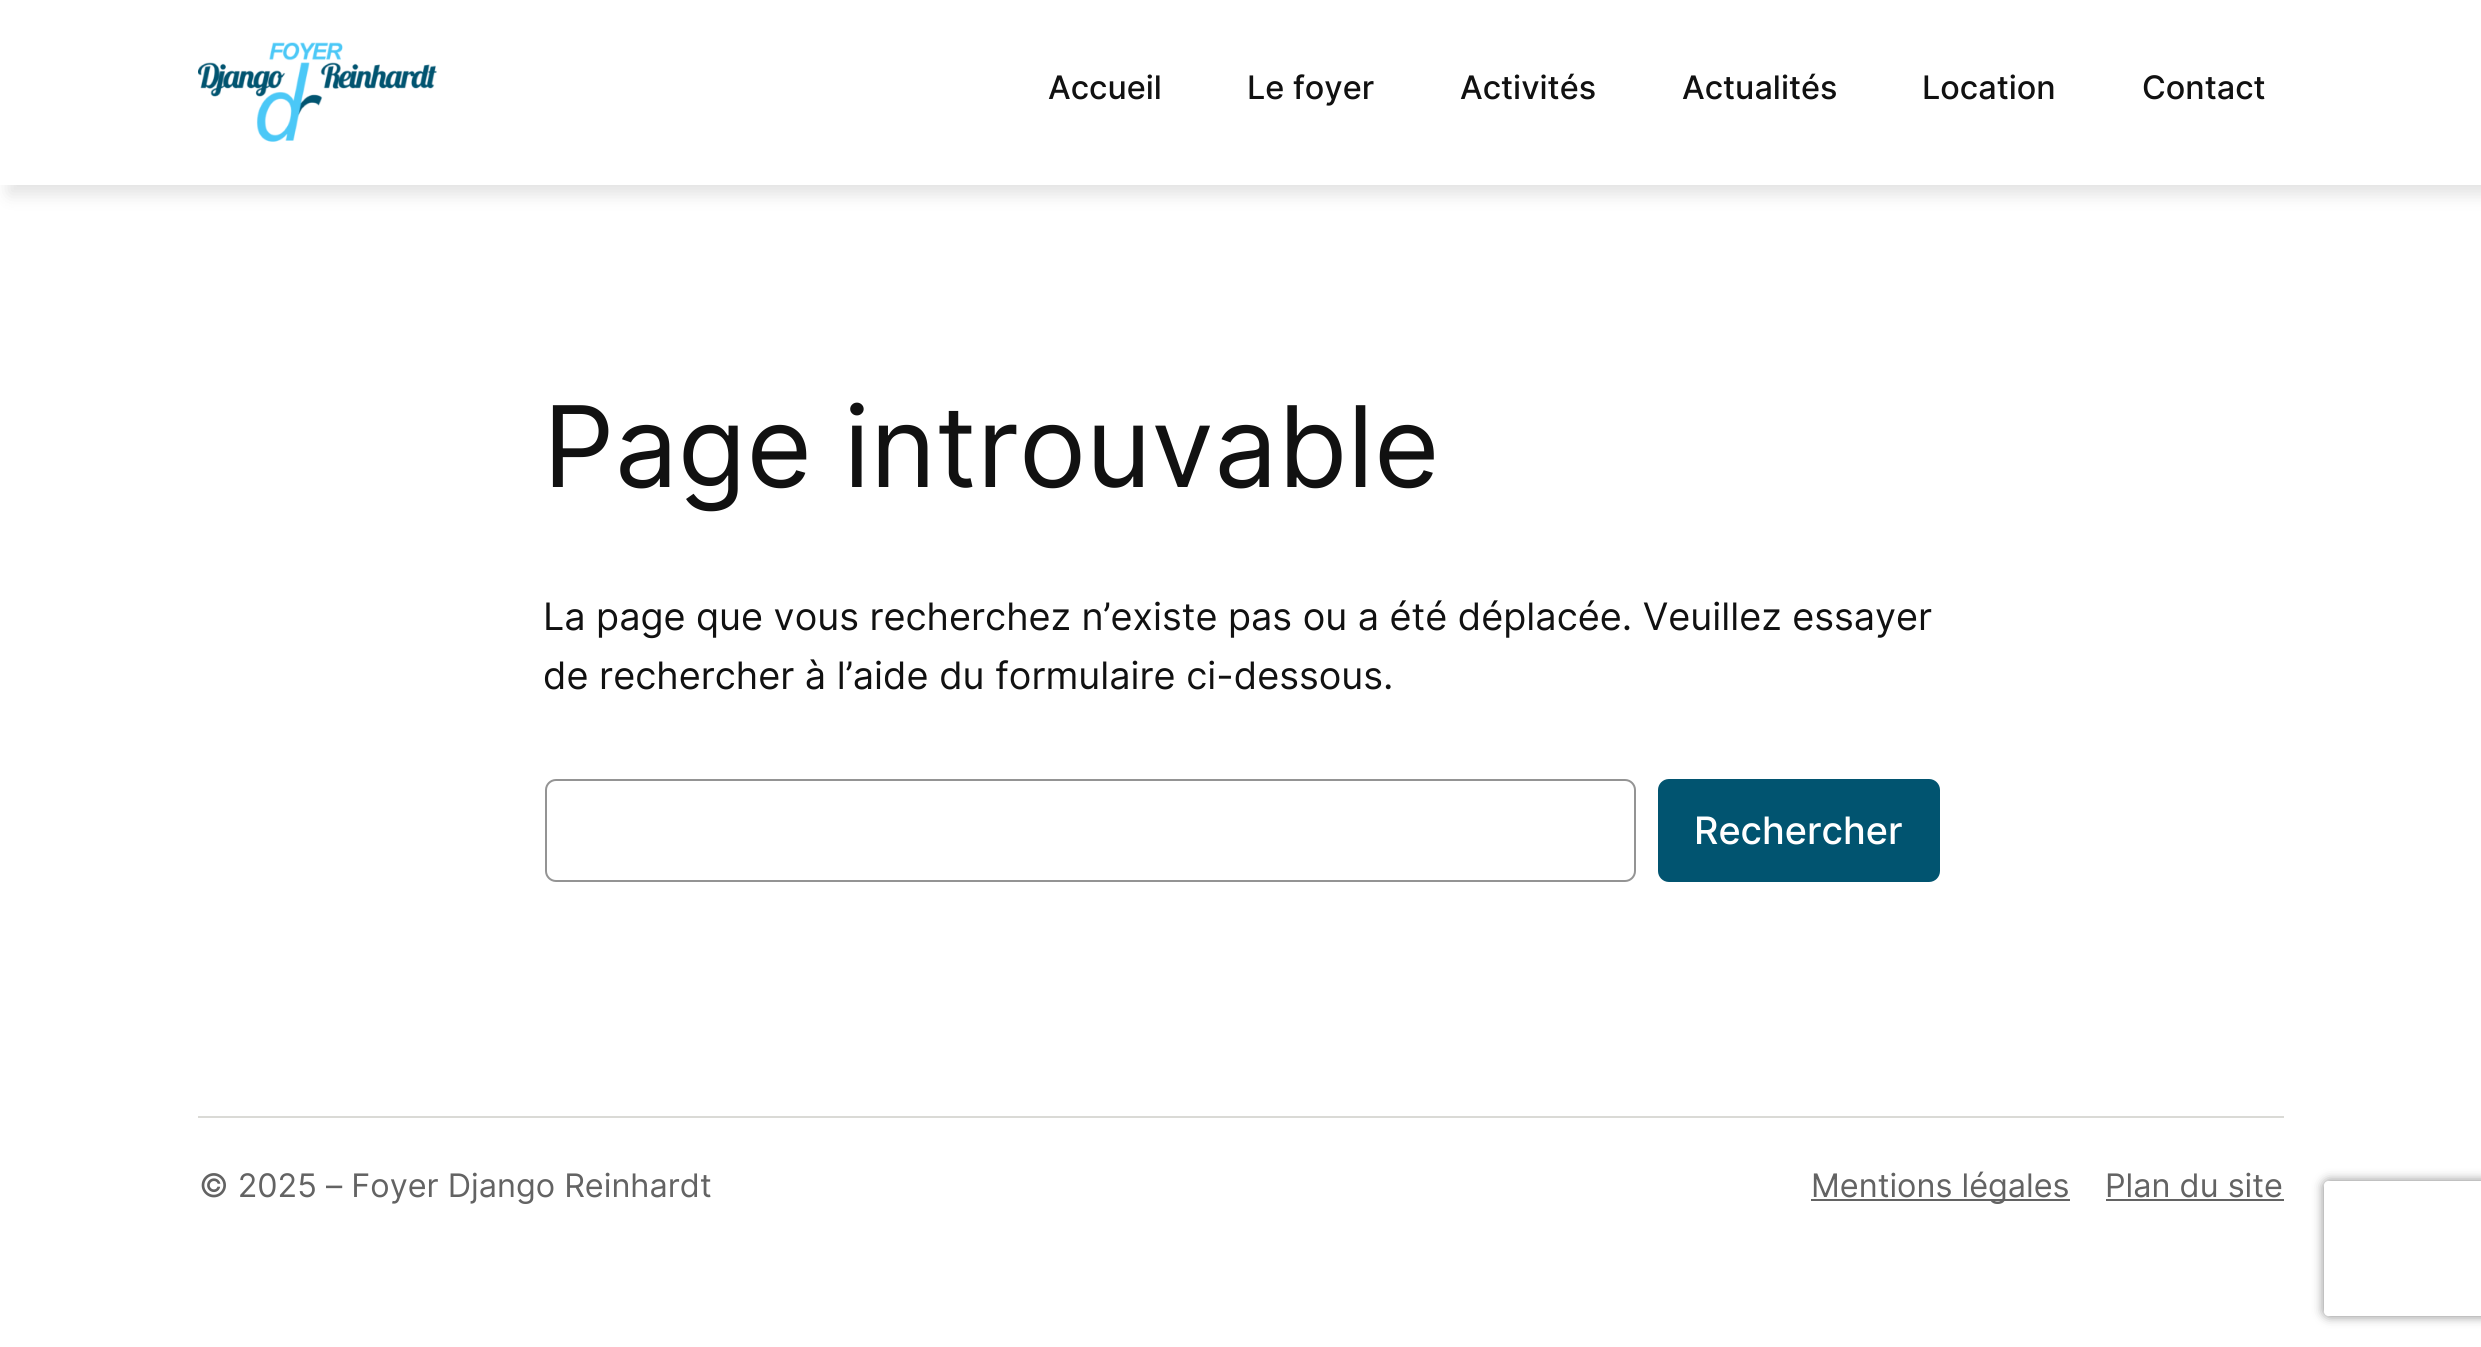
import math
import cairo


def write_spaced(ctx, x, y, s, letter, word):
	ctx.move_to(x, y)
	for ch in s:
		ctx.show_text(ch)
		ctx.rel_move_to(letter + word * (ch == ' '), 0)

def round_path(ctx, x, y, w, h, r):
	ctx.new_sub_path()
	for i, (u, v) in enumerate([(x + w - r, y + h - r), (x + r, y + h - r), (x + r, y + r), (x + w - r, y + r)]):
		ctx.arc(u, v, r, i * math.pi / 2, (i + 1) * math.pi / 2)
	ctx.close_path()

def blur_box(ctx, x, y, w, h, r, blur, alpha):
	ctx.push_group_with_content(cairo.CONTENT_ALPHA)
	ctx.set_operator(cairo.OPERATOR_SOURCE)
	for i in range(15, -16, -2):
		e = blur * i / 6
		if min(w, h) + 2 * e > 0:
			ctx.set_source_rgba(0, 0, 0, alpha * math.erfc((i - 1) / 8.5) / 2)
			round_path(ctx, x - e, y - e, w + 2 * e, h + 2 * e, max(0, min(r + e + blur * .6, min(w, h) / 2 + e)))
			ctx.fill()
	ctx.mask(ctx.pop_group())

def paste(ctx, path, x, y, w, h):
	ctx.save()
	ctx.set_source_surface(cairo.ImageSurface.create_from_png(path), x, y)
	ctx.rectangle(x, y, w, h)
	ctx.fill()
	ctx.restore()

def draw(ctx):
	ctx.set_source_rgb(1, 1, 1)
	ctx.paint()
	ctx.set_source_rgb(0, 0, 0)
	blur_box(ctx, 9, 9, 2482, 185, 0, 9, 0.12)
	ctx.set_source_rgb(1, 1, 1)
	ctx.rectangle(0, 0, 2481, 185)
	ctx.fill()
	paste(ctx, 'media/1.png', 198, 42, 239, 100)
	ctx.select_font_face('Inter Medium')
	ctx.set_font_size(32.4)
	ctx.set_source_rgb(0.067, 0.067, 0.067)
	for x, y, s in [
		(1048, 99, 'Accueil'),
		(1247, 99, 'Le foyer'),
		(1460, 99, 'Activités'),
		(1682, 99, 'Actualités'),
		(1922, 99, 'Location'),
		(2142, 99, 'Contact'),
	]:
		ctx.move_to(x, y)
		ctx.show_text(s)
	ctx.select_font_face('Inter')
	ctx.set_font_size(112.5)
	ctx.move_to(543, 487)
	ctx.show_text('Page introuvable')
	ctx.set_font_size(37.8)
	write_spaced(ctx, 543, 630, 'La page que vous recherchez n’existe pas ou a été déplacée. Veuillez essayer', 0, -0.1)
	ctx.move_to(543, 689)
	ctx.show_text('de rechercher à l’aide du formulaire ci-dessous.')
	round_path(ctx, 546, 780, 1089, 101, 10)
	ctx.set_source_rgb(0.58, 0.58, 0.58)
	ctx.stroke()
	ctx.set_source_rgb(0.004, 0.329, 0.439)
	round_path(ctx, 1658, 779, 282, 103, 11)
	ctx.fill()
	ctx.select_font_face('Inter Medium')
	ctx.set_source_rgb(1, 1, 1)
	ctx.move_to(1694, 844)
	ctx.show_text('Rechercher')
	ctx.set_source_rgb(0.855, 0.855, 0.839)
	ctx.rectangle(198, 1116, 2086, 2)
	ctx.fill()
	ctx.select_font_face('Inter')
	ctx.set_font_size(32.4)
	ctx.set_source_rgb(0.388, 0.388, 0.388)
	ctx.move_to(199, 1197)
	ctx.show_text('© 2025 – Foyer Django Reinhardt')
	ctx.rectangle(1811, 1199, 259, 2)
	ctx.fill()
	ctx.move_to(1811, 1197)
	ctx.show_text('Mentions légales')
	ctx.move_to(2105, 1197)
	ctx.show_text('Plan du site')
	ctx.rectangle(2106, 1199, 178, 2)
	ctx.fill()
	ctx.save()
	ctx.set_fill_rule(cairo.FILL_RULE_EVEN_ODD)
	ctx.new_path()
	ctx.move_to(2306, 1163)
	ctx.line_to(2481, 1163)
	ctx.line_to(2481, 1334)
	ctx.line_to(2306, 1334)
	ctx.close_path()
	ctx.move_to(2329, 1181)
	ctx.line_to(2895, 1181)
	ctx.curve_to(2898, 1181, 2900, 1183, 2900, 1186)
	ctx.line_to(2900, 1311)
	ctx.curve_to(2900, 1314, 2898, 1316, 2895, 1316)
	ctx.line_to(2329, 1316)
	ctx.curve_to(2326, 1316, 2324, 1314, 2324, 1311)
	ctx.line_to(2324, 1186)
	ctx.curve_to(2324, 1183, 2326, 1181, 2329, 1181)
	ctx.close_path()
	ctx.clip()
	ctx.set_source_rgb(0.502, 0.502, 0.502)
	blur_box(ctx, 2324, 1181, 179, 135, 5, 5.5, 1)
	ctx.restore()


surface = cairo.ImageSurface(cairo.FORMAT_RGB24, 2481, 1347)
ctx = cairo.Context(surface)
options = cairo.FontOptions()
options.set_hint_metrics(cairo.HINT_METRICS_OFF)
options.set_hint_style(cairo.HINT_STYLE_NONE)
ctx.set_font_options(options)
ctx.set_miter_limit(4)
draw(ctx)
surface.write_to_png('image.png')
